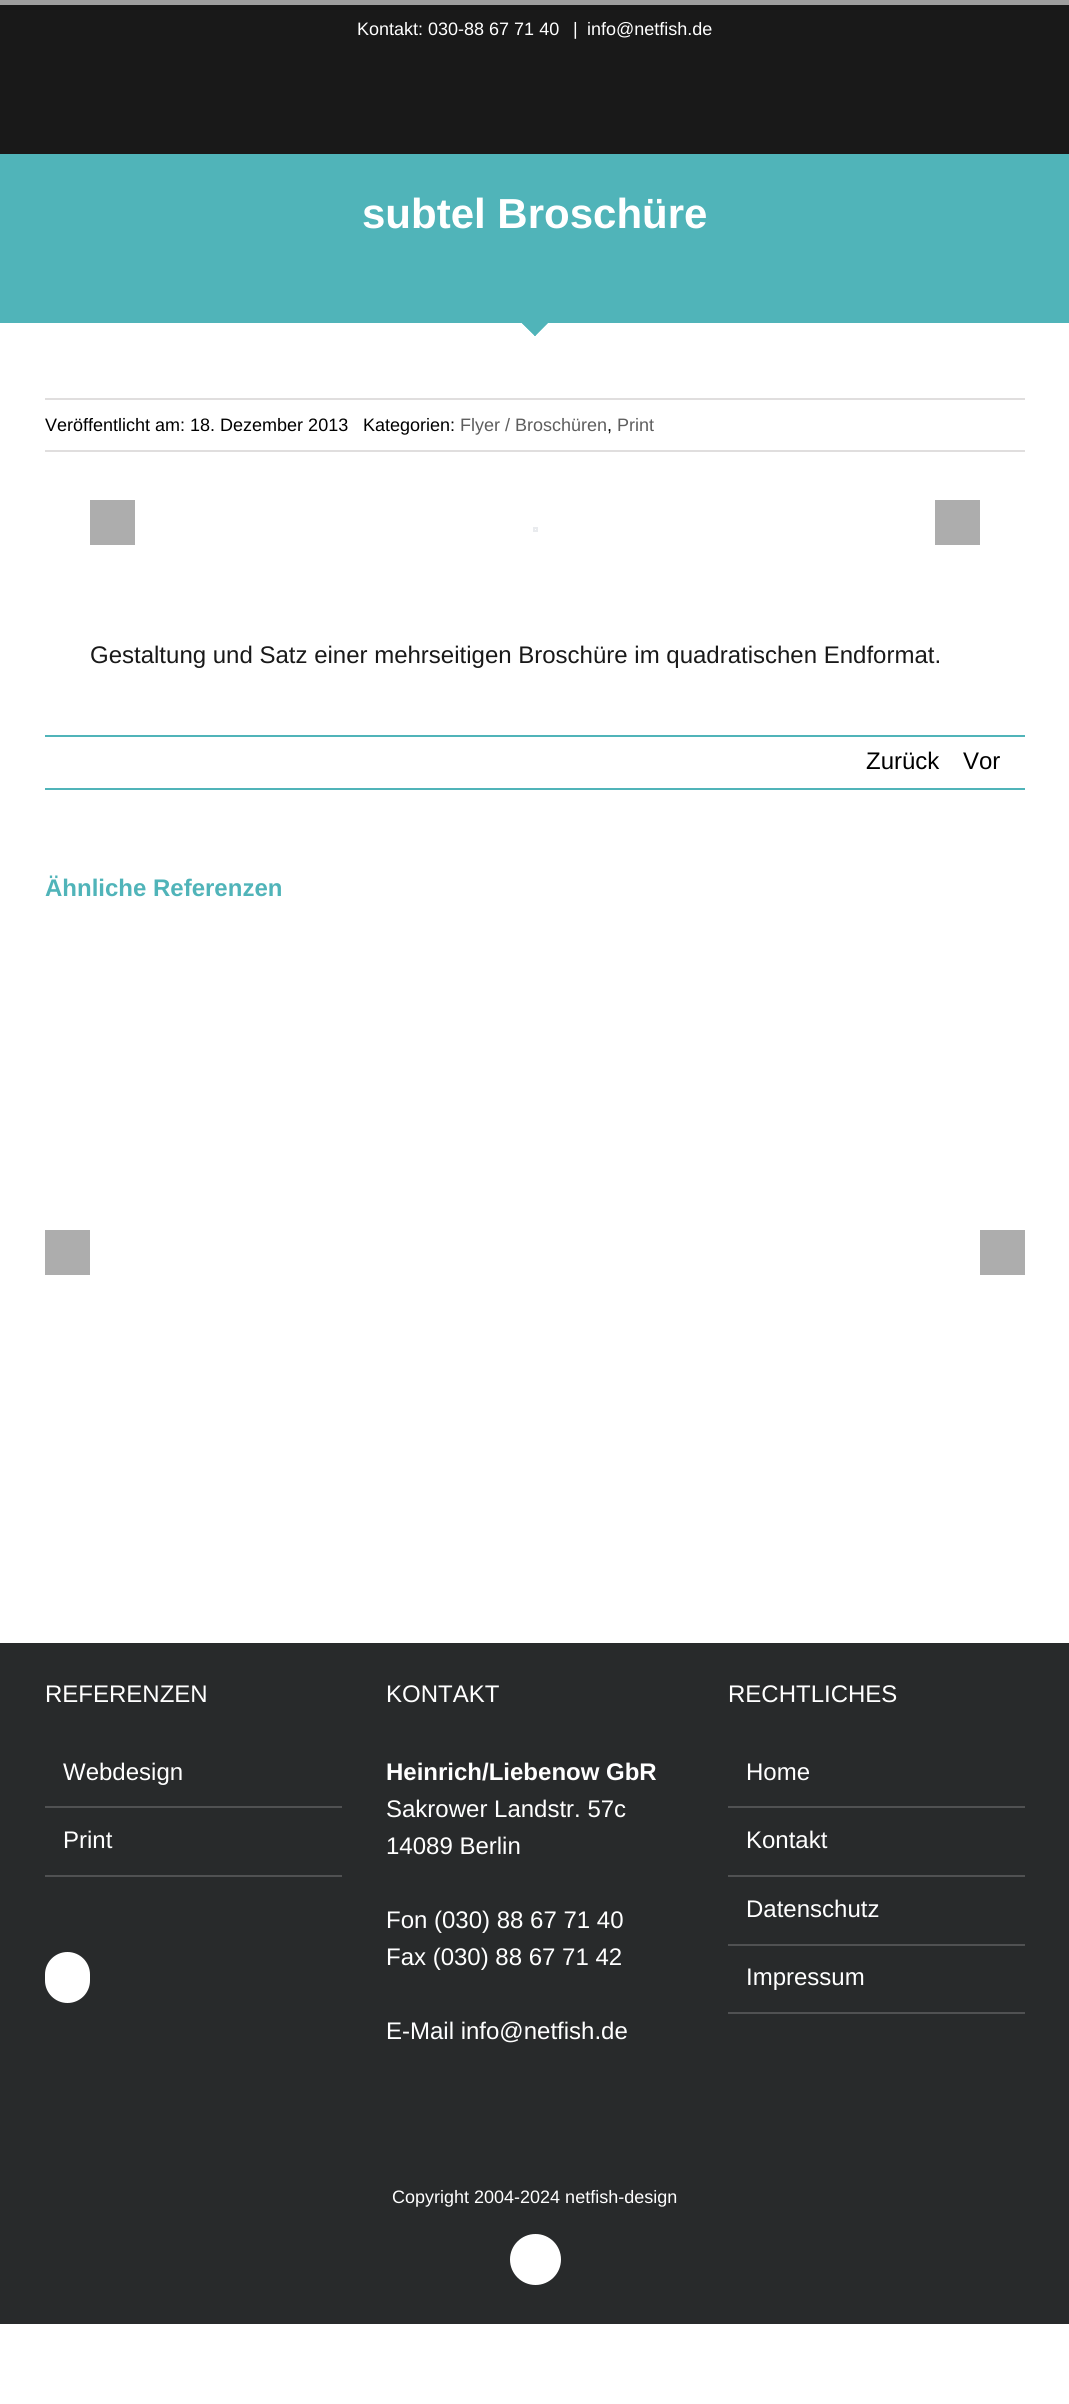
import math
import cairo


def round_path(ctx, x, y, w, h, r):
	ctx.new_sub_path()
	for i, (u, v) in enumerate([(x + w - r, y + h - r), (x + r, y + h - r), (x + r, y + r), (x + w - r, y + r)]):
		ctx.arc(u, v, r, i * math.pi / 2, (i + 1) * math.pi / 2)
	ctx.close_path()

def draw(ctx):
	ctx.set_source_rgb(1, 1, 1)
	ctx.paint()
	ctx.set_source_rgb(0.098, 0.098, 0.098)
	ctx.rectangle(0, 5, 1069, 149)
	ctx.fill()
	ctx.set_source_rgb(0.62, 0.62, 0.62)
	ctx.rectangle(0, 0, 1069, 5)
	ctx.fill()
	ctx.select_font_face('Liberation Sans')
	ctx.set_font_size(18)
	ctx.set_source_rgb(1, 1, 1)
	for x, y, s in [
		(357, 35, 'Kontakt: 030-88 67 71 40'),
		(573, 35, '|'),
		(587, 35, 'info@netfish.de'),
	]:
		ctx.move_to(x, y)
		ctx.show_text(s)
	ctx.set_source_rgb(0.314, 0.706, 0.725)
	ctx.rectangle(0, 154, 1069, 169)
	ctx.fill()
	ctx.select_font_face('Liberation Sans', cairo.FONT_SLANT_NORMAL, cairo.FONT_WEIGHT_BOLD)
	ctx.set_font_size(42)
	ctx.set_source_rgb(1, 1, 1)
	ctx.move_to(362, 228)
	ctx.show_text('subtel Broschüre')
	ctx.set_source_rgb(0.314, 0.706, 0.725)
	ctx.new_path()
	ctx.move_to(491, 292)
	ctx.line_to(578, 292)
	ctx.line_to(535, 336)
	ctx.close_path()
	ctx.fill()
	ctx.new_path()
	ctx.move_to(534, 335)
	ctx.line_to(576, 293)
	ctx.line_to(577, 294)
	ctx.line_to(535, 336)
	ctx.close_path()
	ctx.fill()
	ctx.new_path()
	ctx.move_to(492, 294)
	ctx.line_to(493, 293)
	ctx.line_to(536, 335)
	ctx.line_to(535, 336)
	ctx.close_path()
	ctx.fill()
	ctx.set_source_rgb(0.878, 0.871, 0.871)
	ctx.rectangle(45, 398, 980, 2)
	ctx.fill()
	ctx.rectangle(45, 450, 980, 2)
	ctx.fill()
	ctx.select_font_face('Liberation Sans')
	ctx.set_font_size(18)
	ctx.set_source_rgb(0, 0, 0)
	ctx.move_to(45, 431)
	ctx.show_text('Veröffentlicht am: 18. Dezember 2013')
	ctx.move_to(363, 431)
	ctx.show_text('Kategorien:')
	ctx.set_source_rgb(0.369, 0.369, 0.369)
	ctx.move_to(460, 431)
	ctx.show_text('Flyer / Broschüren')
	ctx.set_source_rgb(0, 0, 0)
	ctx.move_to(607, 431)
	ctx.show_text(',')
	ctx.set_source_rgb(0.369, 0.369, 0.369)
	ctx.move_to(617, 431)
	ctx.show_text('Print')
	ctx.set_source_rgb(0.678, 0.678, 0.678)
	ctx.rectangle(90, 500, 45, 45)
	ctx.fill()
	ctx.rectangle(534, 528, 3, 3)
	ctx.set_source_rgb(0.914, 0.918, 0.933)
	ctx.stroke()
	ctx.set_source_rgb(0.678, 0.678, 0.678)
	ctx.rectangle(935, 500, 45, 45)
	ctx.fill()
	ctx.set_font_size(24)
	ctx.set_source_rgb(0.098, 0.098, 0.098)
	ctx.move_to(90, 663)
	ctx.show_text('Gestaltung und Satz einer mehrseitigen Broschüre im quadratischen Endformat.')
	ctx.set_source_rgb(0.314, 0.706, 0.725)
	ctx.rectangle(45, 735, 980, 2)
	ctx.fill()
	ctx.rectangle(45, 788, 980, 2)
	ctx.fill()
	ctx.set_source_rgb(0, 0, 0)
	ctx.move_to(866, 769)
	ctx.show_text('Zurück')
	ctx.move_to(963, 769)
	ctx.show_text('Vor')
	ctx.select_font_face('Liberation Sans', cairo.FONT_SLANT_NORMAL, cairo.FONT_WEIGHT_BOLD)
	ctx.set_source_rgb(0.314, 0.706, 0.725)
	ctx.move_to(45, 896)
	ctx.show_text('Ähnliche Referenzen')
	ctx.set_source_rgb(0.678, 0.678, 0.678)
	ctx.rectangle(45, 1230, 45, 45)
	ctx.rectangle(980, 1230, 45, 45)
	ctx.fill()
	ctx.set_source_rgb(0.157, 0.165, 0.169)
	ctx.rectangle(0, 1643, 1069, 681)
	ctx.fill()
	ctx.select_font_face('Liberation Sans')
	ctx.set_source_rgb(1, 1, 1)
	ctx.move_to(45, 1702)
	ctx.show_text('REFERENZEN')
	ctx.set_source_rgb(0.314, 0.318, 0.322)
	ctx.rectangle(45, 1806, 297, 2)
	ctx.fill()
	ctx.set_source_rgb(1, 1, 1)
	ctx.move_to(63, 1780)
	ctx.show_text('Webdesign')
	ctx.set_source_rgb(0.314, 0.318, 0.322)
	ctx.rectangle(45, 1875, 297, 2)
	ctx.fill()
	ctx.set_source_rgb(1, 1, 1)
	ctx.move_to(63, 1848)
	ctx.show_text('Print')
	round_path(ctx, 46, 1953, 43, 49, 21.5)
	ctx.fill_preserve()
	ctx.stroke()
	ctx.move_to(386, 1702)
	ctx.show_text('KONTAKT')
	ctx.select_font_face('Liberation Sans', cairo.FONT_SLANT_NORMAL, cairo.FONT_WEIGHT_BOLD)
	ctx.move_to(386, 1780)
	ctx.show_text('Heinrich/Liebenow GbR')
	ctx.select_font_face('Liberation Sans')
	for x, y, s in [
		(386, 1817, 'Sakrower Landstr. 57c'),
		(386, 1854, '14089 Berlin'),
		(386, 1928, 'Fon (030) 88 67 71 40'),
		(386, 1965, 'Fax (030) 88 67 71 42'),
		(386, 2039, 'E-Mail info@netfish.de'),
		(728, 1702, 'RECHTLICHES'),
	]:
		ctx.move_to(x, y)
		ctx.show_text(s)
	ctx.set_source_rgb(0.314, 0.318, 0.322)
	ctx.rectangle(728, 1806, 297, 2)
	ctx.fill()
	ctx.set_source_rgb(1, 1, 1)
	ctx.move_to(746, 1780)
	ctx.show_text('Home')
	ctx.set_source_rgb(0.314, 0.318, 0.322)
	ctx.rectangle(728, 1875, 297, 2)
	ctx.fill()
	ctx.set_source_rgb(1, 1, 1)
	ctx.move_to(746, 1848)
	ctx.show_text('Kontakt')
	ctx.set_source_rgb(0.314, 0.318, 0.322)
	ctx.rectangle(728, 1944, 297, 2)
	ctx.fill()
	ctx.set_source_rgb(1, 1, 1)
	ctx.move_to(746, 1917)
	ctx.show_text('Datenschutz')
	ctx.set_source_rgb(0.314, 0.318, 0.322)
	ctx.rectangle(728, 2012, 297, 2)
	ctx.fill()
	ctx.set_source_rgb(1, 1, 1)
	ctx.move_to(746, 1985)
	ctx.show_text('Impressum')
	ctx.set_font_size(18)
	ctx.move_to(392, 2203)
	ctx.show_text('Copyright 2004-2024 netfish-design')
	ctx.new_path()
	ctx.arc(535.5, 2259.5, 24.5, 0, 2 * math.pi)
	ctx.fill_preserve()
	ctx.stroke()


surface = cairo.ImageSurface(cairo.FORMAT_RGB24, 1069, 2404)
ctx = cairo.Context(surface)
options = cairo.FontOptions()
options.set_hint_metrics(cairo.HINT_METRICS_OFF)
options.set_hint_style(cairo.HINT_STYLE_NONE)
ctx.set_font_options(options)
ctx.set_miter_limit(4)
draw(ctx)
surface.write_to_png('image.png')
